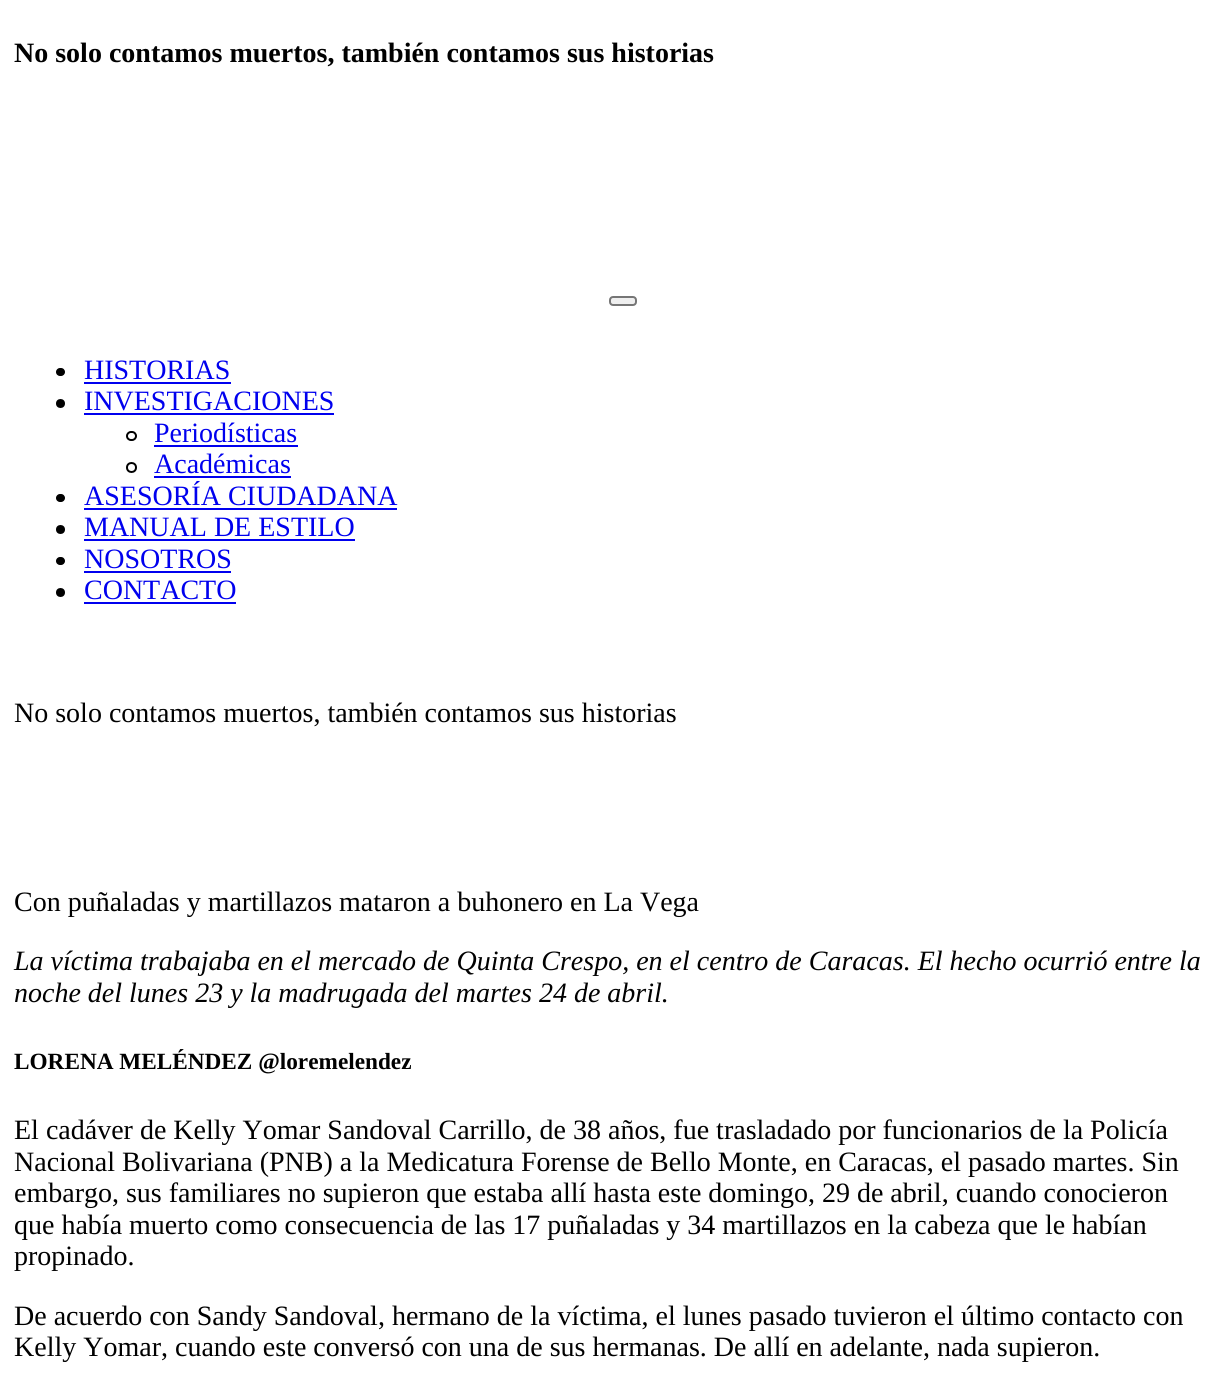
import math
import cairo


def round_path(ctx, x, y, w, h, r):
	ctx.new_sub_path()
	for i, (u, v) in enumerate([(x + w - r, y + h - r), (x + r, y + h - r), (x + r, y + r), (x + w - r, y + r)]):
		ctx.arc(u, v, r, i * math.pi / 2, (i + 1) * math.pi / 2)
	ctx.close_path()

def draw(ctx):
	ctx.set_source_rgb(1, 1, 1)
	ctx.paint()
	ctx.select_font_face('Liberation Serif', cairo.FONT_SLANT_NORMAL, cairo.FONT_WEIGHT_BOLD)
	ctx.set_font_size(28)
	ctx.set_source_rgb(0, 0, 0)
	ctx.move_to(14, 62)
	ctx.show_text('No solo contamos muertos, también contamos sus historias')
	ctx.set_source_rgb(0.937, 0.937, 0.937)
	round_path(ctx, 610, 297, 26, 8, 3)
	ctx.fill_preserve()
	ctx.set_source_rgb(0.463, 0.463, 0.463)
	ctx.stroke()
	ctx.set_source_rgb(0, 0, 0)
	round_path(ctx, 56, 368, 9, 8, 4)
	ctx.fill()
	ctx.select_font_face('Liberation Serif')
	ctx.set_source_rgb(0, 0, 0.933)
	ctx.move_to(84, 379)
	ctx.show_text('HISTORIAS')
	ctx.rectangle(84, 382, 147, 2)
	ctx.fill()
	ctx.set_source_rgb(0, 0, 0)
	ctx.arc(60.5, 403.5, 4.5, 0, 2 * math.pi)
	ctx.fill()
	ctx.set_source_rgb(0, 0, 0.933)
	ctx.move_to(84, 410)
	ctx.show_text('INVESTIGACIONES')
	ctx.rectangle(84, 413, 250, 2)
	ctx.fill()
	round_path(ctx, 127, 432, 9, 8, 4)
	ctx.set_source_rgb(0, 0, 0)
	ctx.stroke()
	ctx.set_source_rgb(0, 0, 0.933)
	ctx.move_to(154, 442)
	ctx.show_text('Periodísticas')
	ctx.rectangle(154, 445, 144, 2)
	ctx.fill()
	ctx.arc(131.5, 467.5, 4.5, 0, 2 * math.pi)
	ctx.set_source_rgb(0, 0, 0)
	ctx.stroke()
	ctx.set_source_rgb(0, 0, 0.933)
	ctx.move_to(154, 473)
	ctx.show_text('Académicas')
	ctx.rectangle(154, 476, 137, 2)
	ctx.fill()
	ctx.set_source_rgb(0, 0, 0)
	round_path(ctx, 56, 494, 9, 8, 4)
	ctx.fill()
	ctx.set_source_rgb(0, 0, 0.933)
	ctx.move_to(84, 505)
	ctx.show_text('ASESORÍA CIUDADANA')
	ctx.rectangle(84, 508, 313, 2)
	ctx.fill()
	ctx.set_source_rgb(0, 0, 0)
	ctx.arc(60.5, 529.5, 4.5, 0, 2 * math.pi)
	ctx.fill()
	ctx.set_source_rgb(0, 0, 0.933)
	ctx.move_to(84, 536)
	ctx.show_text('MANUAL DE ESTILO')
	ctx.rectangle(84, 539, 271, 2)
	ctx.fill()
	ctx.set_source_rgb(0, 0, 0)
	round_path(ctx, 56, 557, 9, 8, 4)
	ctx.fill()
	ctx.set_source_rgb(0, 0, 0.933)
	ctx.move_to(84, 568)
	ctx.show_text('NOSOTROS')
	ctx.rectangle(84, 571, 147, 2)
	ctx.fill()
	ctx.set_source_rgb(0, 0, 0)
	ctx.arc(60.5, 592.5, 4.5, 0, 2 * math.pi)
	ctx.fill()
	ctx.set_source_rgb(0, 0, 0.933)
	ctx.move_to(84, 599)
	ctx.show_text('CONTACTO')
	ctx.rectangle(84, 602, 152, 2)
	ctx.fill()
	ctx.set_source_rgb(0, 0, 0)
	ctx.move_to(14, 722)
	ctx.show_text('No solo contamos muertos, también contamos sus historias')
	ctx.move_to(14, 911)
	ctx.show_text('Con puñaladas y martillazos mataron a buhonero en La Vega')
	ctx.select_font_face('Liberation Serif', cairo.FONT_SLANT_ITALIC)
	ctx.move_to(14, 970)
	ctx.show_text('La víctima trabajaba en el mercado de Quinta Crespo, en el centro de Caracas. El hecho ocurrió entre la')
	ctx.move_to(14, 1002)
	ctx.show_text('noche del lunes 23 y la madrugada del martes 24 de abril.')
	ctx.select_font_face('Liberation Serif', cairo.FONT_SLANT_NORMAL, cairo.FONT_WEIGHT_BOLD)
	ctx.set_font_size(23.25)
	ctx.move_to(14, 1069)
	ctx.show_text('LORENA MELÉNDEZ @loremelendez')
	ctx.select_font_face('Liberation Serif')
	ctx.set_font_size(28)
	for x, y, s in [
		(14, 1139, 'El cadáver de Kelly Yomar Sandoval Carrillo, de 38 años, fue trasladado por funcionarios de la Policía'),
		(14, 1171, 'Nacional Bolivariana (PNB) a la Medicatura Forense de Bello Monte, en Caracas, el pasado martes. Sin'),
		(14, 1202, 'embargo, sus familiares no supieron que estaba allí hasta este domingo, 29 de abril, cuando conocieron'),
		(14, 1234, 'que había muerto como consecuencia de las 17 puñaladas y 34 martillazos en la cabeza que le habían'),
		(14, 1265, 'propinado.'),
		(14, 1325, 'De acuerdo con Sandy Sandoval, hermano de la víctima, el lunes pasado tuvieron el último contacto con'),
		(14, 1356, 'Kelly Yomar, cuando este conversó con una de sus hermanas. De allí en adelante, nada supieron.'),
	]:
		ctx.move_to(x, y)
		ctx.show_text(s)


surface = cairo.ImageSurface(cairo.FORMAT_RGB24, 1217, 1377)
ctx = cairo.Context(surface)
options = cairo.FontOptions()
options.set_hint_metrics(cairo.HINT_METRICS_OFF)
options.set_hint_style(cairo.HINT_STYLE_NONE)
ctx.set_font_options(options)
ctx.set_miter_limit(4)
draw(ctx)
surface.write_to_png('image.png')
